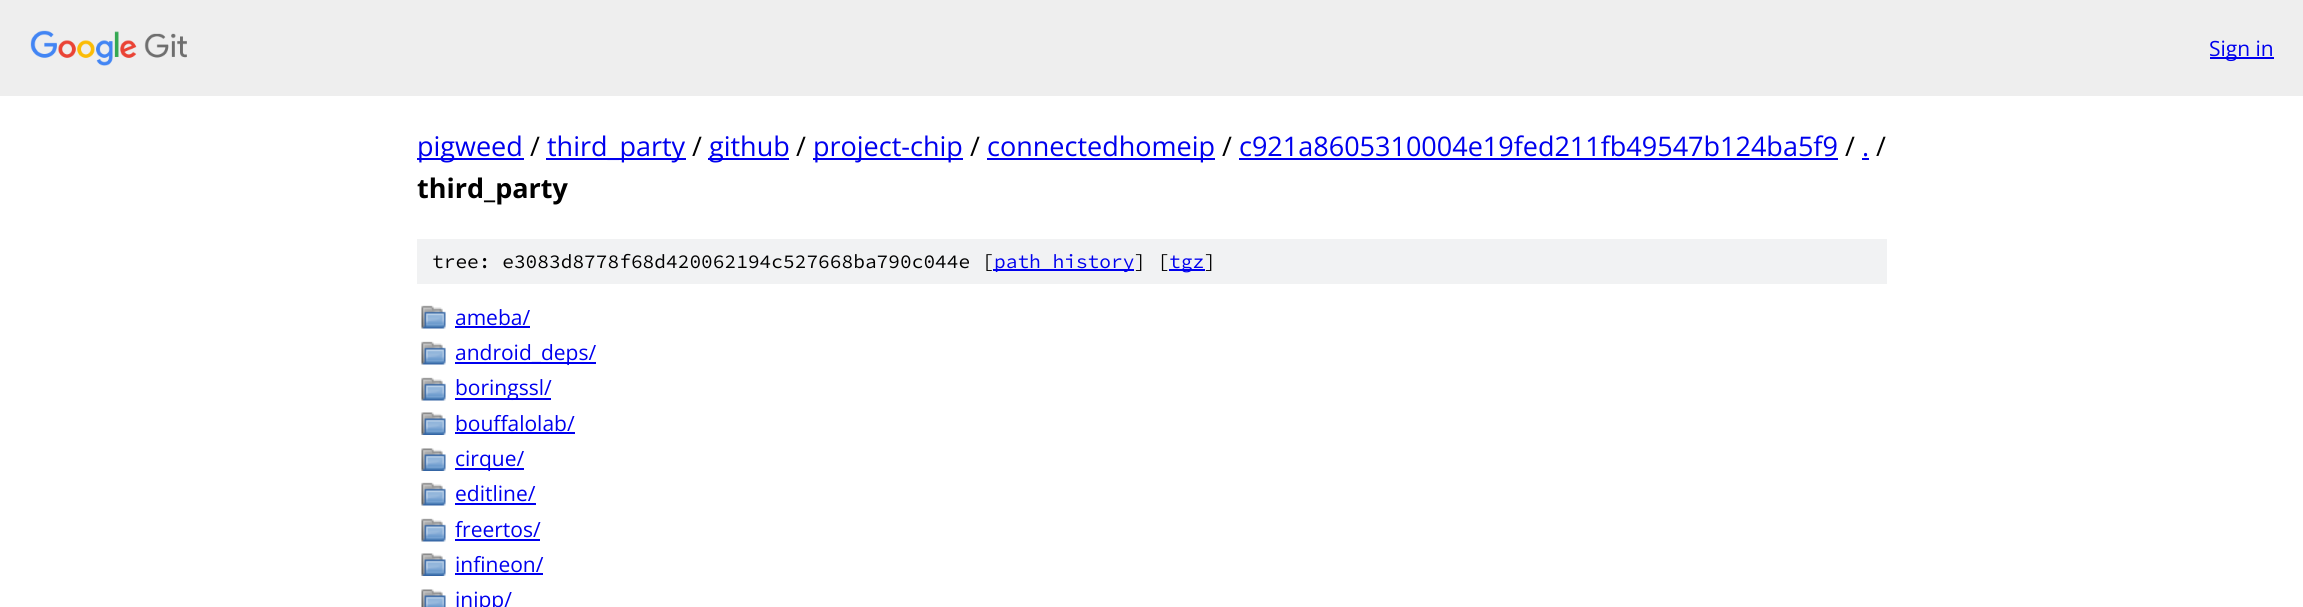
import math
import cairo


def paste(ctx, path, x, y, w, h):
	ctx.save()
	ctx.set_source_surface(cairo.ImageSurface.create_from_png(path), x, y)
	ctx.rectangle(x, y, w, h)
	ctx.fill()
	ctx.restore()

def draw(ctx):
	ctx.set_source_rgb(1, 1, 1)
	ctx.paint()
	ctx.set_source_rgb(0.933, 0.933, 0.933)
	ctx.rectangle(0, 0, 2303, 96)
	ctx.fill()
	paste(ctx, 'media/1.png', 30, 30, 157, 36)
	ctx.set_source_rgb(0, 0, 0.933)
	ctx.rectangle(2210, 57, 64, 2)
	ctx.fill()
	ctx.select_font_face('Open Sans')
	ctx.set_font_size(21)
	ctx.move_to(2209, 56)
	ctx.show_text('Sign in')
	ctx.rectangle(417, 158, 107, 2)
	ctx.fill()
	ctx.set_font_size(27)
	ctx.move_to(417, 156)
	ctx.show_text('pigweed')
	ctx.set_source_rgb(0, 0, 0)
	ctx.move_to(530, 156)
	ctx.show_text('/')
	ctx.set_source_rgb(0, 0, 0.933)
	ctx.rectangle(546, 158, 140, 2)
	ctx.fill()
	ctx.move_to(547, 156)
	ctx.show_text('third_party')
	ctx.set_source_rgb(0, 0, 0)
	ctx.move_to(692, 156)
	ctx.show_text('/')
	ctx.set_source_rgb(0, 0, 0.933)
	ctx.rectangle(708, 158, 81, 2)
	ctx.fill()
	ctx.move_to(709, 156)
	ctx.show_text('github')
	ctx.set_source_rgb(0, 0, 0)
	ctx.move_to(796, 156)
	ctx.show_text('/')
	ctx.set_source_rgb(0, 0, 0.933)
	ctx.rectangle(813, 158, 150, 2)
	ctx.fill()
	ctx.move_to(813, 156)
	ctx.show_text('project-chip')
	ctx.set_source_rgb(0, 0, 0)
	ctx.move_to(970, 156)
	ctx.show_text('/')
	ctx.set_source_rgb(0, 0, 0.933)
	ctx.rectangle(987, 158, 228, 2)
	ctx.fill()
	ctx.move_to(987, 156)
	ctx.show_text('connectedhomeip')
	ctx.set_source_rgb(0, 0, 0)
	ctx.move_to(1222, 156)
	ctx.show_text('/')
	ctx.set_source_rgb(0, 0, 0.933)
	ctx.move_to(1239, 156)
	ctx.show_text('c921a8605310004e19fed211fb49547b124ba5f9')
	ctx.rectangle(1239, 158, 599, 2)
	ctx.fill()
	ctx.set_source_rgb(0, 0, 0)
	ctx.move_to(1845, 156)
	ctx.show_text('/')
	ctx.set_source_rgb(0, 0, 0.933)
	ctx.move_to(1862, 156)
	ctx.show_text('.')
	ctx.rectangle(1862, 158, 7, 2)
	ctx.fill()
	ctx.set_source_rgb(0, 0, 0)
	ctx.move_to(1876, 156)
	ctx.show_text('/')
	ctx.select_font_face('Open Sans', cairo.FONT_SLANT_NORMAL, cairo.FONT_WEIGHT_BOLD)
	ctx.move_to(417, 198)
	ctx.show_text('third_party')
	ctx.set_source_rgb(0.945, 0.949, 0.953)
	ctx.rectangle(417, 239, 1470, 45)
	ctx.fill()
	ctx.select_font_face('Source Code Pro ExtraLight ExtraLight')
	ctx.set_font_size(19.5)
	ctx.set_source_rgb(0, 0, 0)
	ctx.move_to(432, 268)
	ctx.show_text('tree: e3083d8778f68d420062194c527668ba790c044e [')
	ctx.set_source_rgb(0, 0, 0.933)
	ctx.rectangle(993, 269, 141, 2)
	ctx.fill()
	ctx.move_to(994, 268)
	ctx.show_text('path history')
	ctx.set_source_rgb(0, 0, 0)
	ctx.move_to(1134, 268)
	ctx.show_text('] [')
	ctx.set_source_rgb(0, 0, 0.933)
	ctx.rectangle(1169, 269, 36, 2)
	ctx.fill()
	ctx.move_to(1169, 268)
	ctx.show_text('tgz')
	ctx.set_source_rgb(0, 0, 0)
	ctx.move_to(1204, 268)
	ctx.show_text(']')
	paste(ctx, 'media/2.png', 421, 305, 25, 24)
	ctx.select_font_face('Open Sans')
	ctx.set_font_size(21)
	ctx.set_source_rgb(0, 0, 0.933)
	ctx.move_to(455, 325)
	ctx.show_text('ameba/')
	ctx.rectangle(455, 326, 75, 2)
	ctx.fill()
	paste(ctx, 'media/2.png', 421, 341, 25, 24)
	ctx.rectangle(455, 362, 141, 2)
	ctx.fill()
	ctx.move_to(455, 360)
	ctx.show_text('android_deps/')
	paste(ctx, 'media/2.png', 421, 377, 25, 24)
	ctx.rectangle(455, 398, 96, 2)
	ctx.fill()
	ctx.move_to(455, 395)
	ctx.show_text('boringssl/')
	paste(ctx, 'media/3.png', 421, 412, 25, 23)
	ctx.move_to(455, 431)
	ctx.show_text('bouffalolab/')
	ctx.rectangle(455, 432, 120, 2)
	ctx.fill()
	paste(ctx, 'media/3.png', 421, 448, 25, 23)
	ctx.rectangle(455, 468, 69, 2)
	ctx.fill()
	ctx.move_to(455, 466)
	ctx.show_text('cirque/')
	paste(ctx, 'media/2.png', 421, 482, 25, 24)
	ctx.move_to(455, 501)
	ctx.show_text('editline/')
	ctx.rectangle(455, 503, 81, 2)
	ctx.fill()
	paste(ctx, 'media/2.png', 421, 518, 25, 24)
	ctx.move_to(455, 537)
	ctx.show_text('freertos/')
	ctx.rectangle(455, 539, 85, 2)
	ctx.fill()
	paste(ctx, 'media/3.png', 421, 553, 25, 23)
	ctx.move_to(455, 572)
	ctx.show_text('infineon/')
	ctx.rectangle(455, 573, 88, 2)
	ctx.fill()
	paste(ctx, 'media/4.png', 421, 589, 25, 18)
	ctx.move_to(455, 607)
	ctx.show_text('inipp/')


surface = cairo.ImageSurface(cairo.FORMAT_RGB24, 2303, 607)
ctx = cairo.Context(surface)
options = cairo.FontOptions()
options.set_hint_metrics(cairo.HINT_METRICS_OFF)
options.set_hint_style(cairo.HINT_STYLE_NONE)
ctx.set_font_options(options)
ctx.set_miter_limit(4)
draw(ctx)
surface.write_to_png('image.png')
